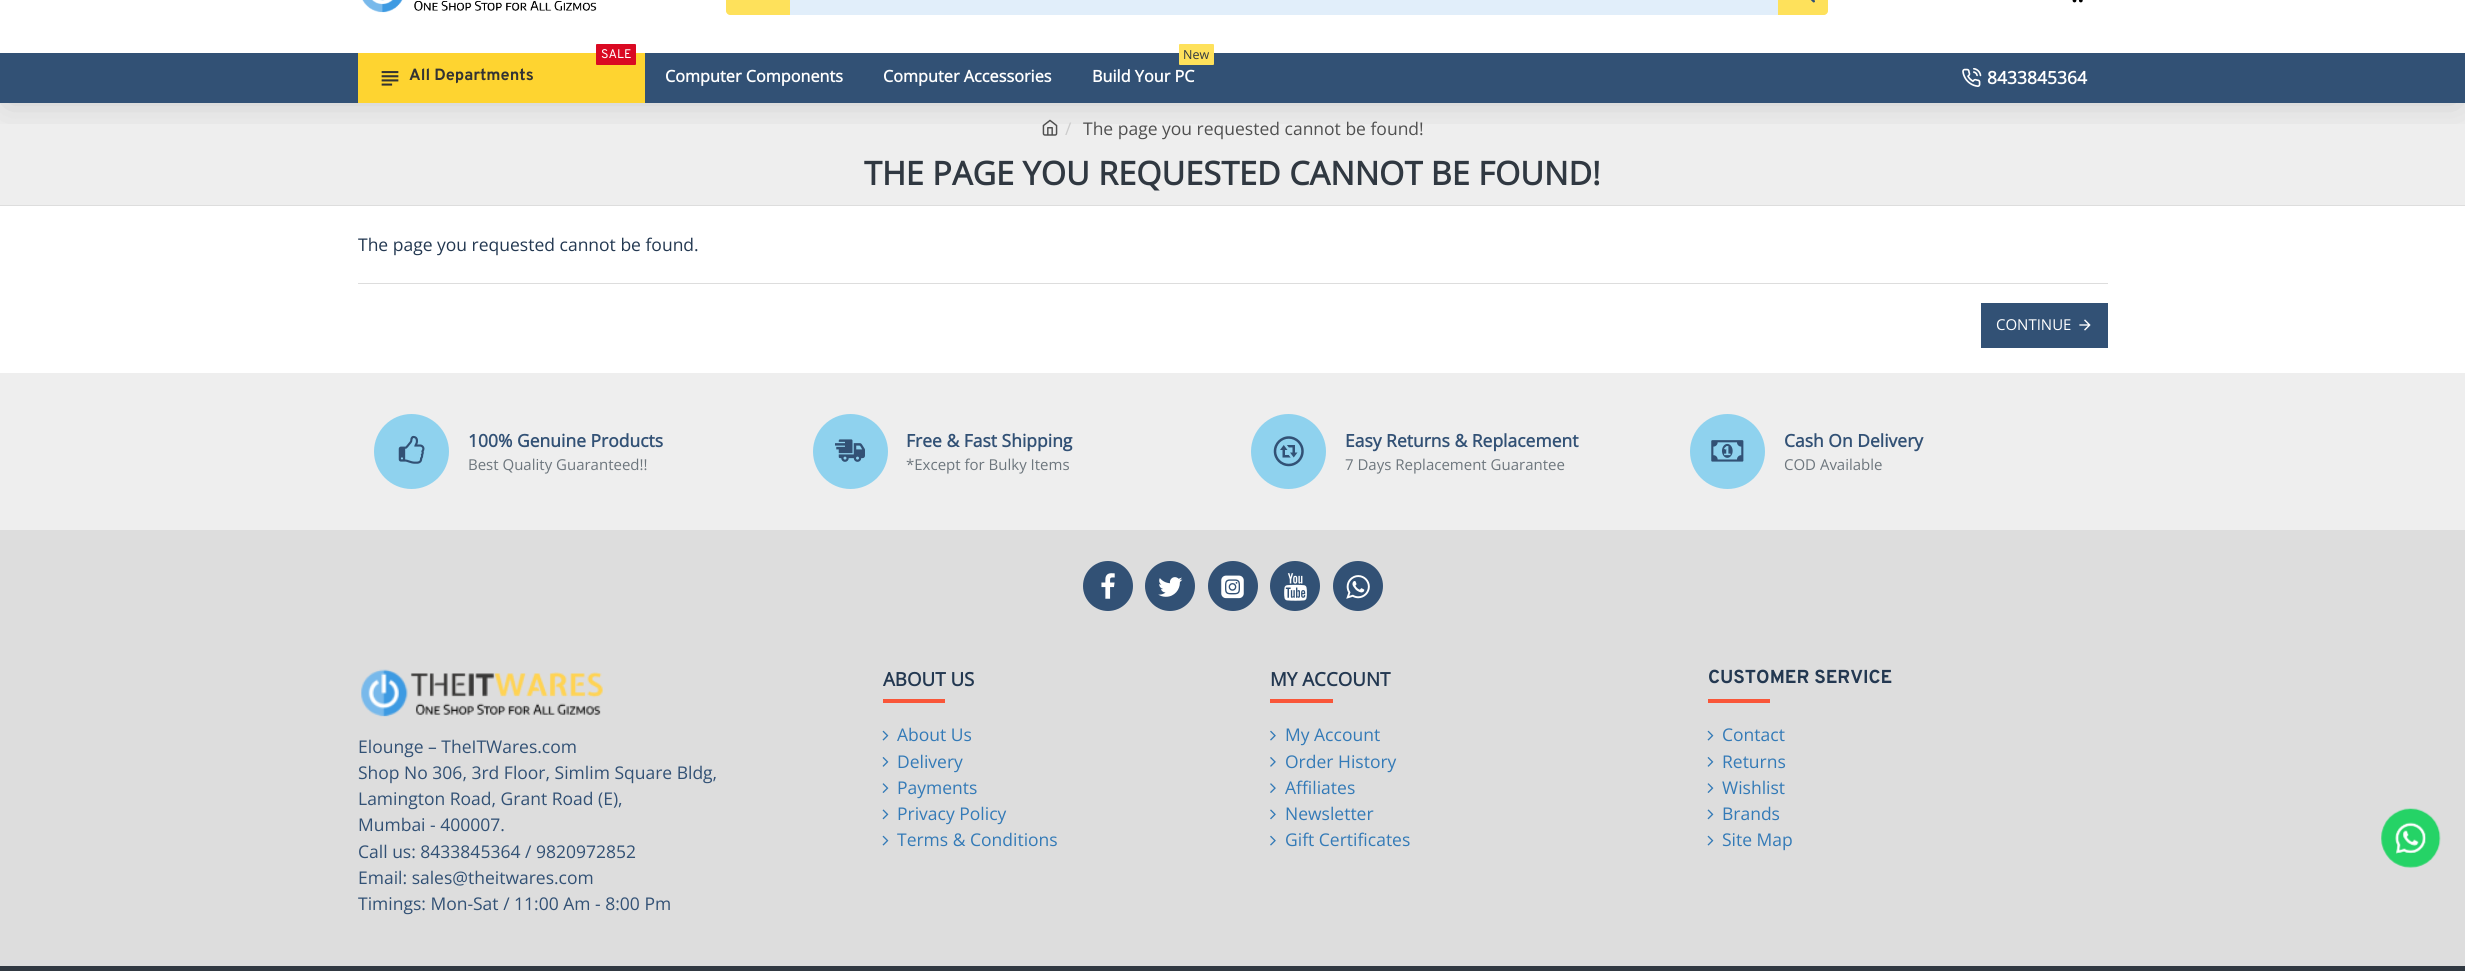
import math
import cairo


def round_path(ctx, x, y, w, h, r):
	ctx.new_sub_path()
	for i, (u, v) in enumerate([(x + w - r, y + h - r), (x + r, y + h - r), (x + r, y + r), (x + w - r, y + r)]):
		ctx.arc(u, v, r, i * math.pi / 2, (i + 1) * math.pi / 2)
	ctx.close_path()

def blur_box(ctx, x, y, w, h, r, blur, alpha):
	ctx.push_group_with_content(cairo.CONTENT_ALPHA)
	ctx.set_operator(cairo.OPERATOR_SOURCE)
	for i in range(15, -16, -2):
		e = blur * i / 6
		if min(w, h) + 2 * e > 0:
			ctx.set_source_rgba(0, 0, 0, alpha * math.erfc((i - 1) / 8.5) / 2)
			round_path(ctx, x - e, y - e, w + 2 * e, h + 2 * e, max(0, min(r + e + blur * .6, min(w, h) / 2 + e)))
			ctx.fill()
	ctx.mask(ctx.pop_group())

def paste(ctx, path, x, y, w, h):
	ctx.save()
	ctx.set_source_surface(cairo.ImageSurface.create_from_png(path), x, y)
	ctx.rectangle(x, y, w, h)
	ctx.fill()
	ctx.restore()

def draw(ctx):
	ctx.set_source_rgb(1, 1, 1)
	ctx.paint()
	ctx.set_source_rgb(0.933, 0.933, 0.933)
	ctx.rectangle(0, 103, 2465, 102)
	ctx.fill()
	paste(ctx, 'media/6.png', 1042, 119, 16, 17)
	ctx.save()
	ctx.rectangle(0, 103, 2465, 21)
	ctx.clip()
	ctx.set_source_rgb(0, 0, 0)
	blur_box(ctx, 6, -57, 2453, 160, 0, 19, 0.15)
	ctx.restore()
	paste(ctx, 'media/1.png', 362, 0, 235, 13)
	ctx.set_source_rgb(0.996, 0.882, 0.357)
	ctx.new_path()
	ctx.move_to(730, -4)
	ctx.line_to(790, -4)
	ctx.line_to(790, 15)
	ctx.line_to(730, 15)
	ctx.curve_to(728, 15, 726, 13, 726, 11)
	ctx.line_to(726, 0)
	ctx.curve_to(726, -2, 728, -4, 730, -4)
	ctx.close_path()
	ctx.fill()
	ctx.set_source_rgb(0.882, 0.933, 0.98)
	ctx.rectangle(790, 0, 988, 15)
	ctx.fill()
	ctx.set_source_rgb(0.996, 0.882, 0.357)
	ctx.new_path()
	ctx.move_to(1778, -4)
	ctx.line_to(1824, -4)
	ctx.curve_to(1826, -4, 1828, -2, 1828, 0)
	ctx.line_to(1828, 11)
	ctx.curve_to(1828, 13, 1826, 15, 1824, 15)
	ctx.line_to(1778, 15)
	ctx.close_path()
	ctx.fill()
	paste(ctx, 'media/2.png', 1810, 0, 5, 3)
	paste(ctx, 'media/3.png', 2072, 0, 11, 3)
	ctx.set_source_rgb(0.196, 0.318, 0.459)
	ctx.rectangle(0, 53, 2465, 50)
	ctx.fill()
	ctx.set_source_rgb(0.996, 0.831, 0.188)
	ctx.rectangle(358, 53, 287, 50)
	ctx.fill()
	ctx.set_source_rgb(0.855, 0.039, 0.133)
	round_path(ctx, 596, 44, 40, 21, 1)
	ctx.fill()
	ctx.select_font_face('Overpass')
	ctx.set_font_size(12.5)
	ctx.set_source_rgb(1, 1, 1)
	ctx.move_to(601, 58)
	ctx.show_text('SALE')
	paste(ctx, 'media/4.png', 381, 71, 18, 15)
	ctx.select_font_face('Overpass', cairo.FONT_SLANT_NORMAL, cairo.FONT_WEIGHT_BOLD)
	ctx.set_font_size(16.25)
	ctx.set_source_rgb(0.2, 0.2, 0.2)
	ctx.move_to(409, 80)
	ctx.show_text('All Departments')
	ctx.select_font_face('Open Sans', cairo.FONT_SLANT_NORMAL, cairo.FONT_WEIGHT_BOLD)
	ctx.set_source_rgb(1, 1, 1)
	ctx.move_to(665, 82)
	ctx.show_text('Computer Components')
	ctx.move_to(883, 82)
	ctx.show_text('Computer Accessories')
	ctx.set_source_rgb(0.996, 0.882, 0.357)
	round_path(ctx, 1179, 44, 35, 21, 1)
	ctx.fill()
	ctx.select_font_face('Open Sans')
	ctx.set_font_size(12.5)
	ctx.set_source_rgb(0.188, 0.22, 0.255)
	ctx.move_to(1183, 59)
	ctx.show_text('New')
	ctx.select_font_face('Open Sans', cairo.FONT_SLANT_NORMAL, cairo.FONT_WEIGHT_BOLD)
	ctx.set_font_size(16.25)
	ctx.set_source_rgb(1, 1, 1)
	ctx.move_to(1092, 82)
	ctx.show_text('Build Your PC')
	paste(ctx, 'media/5.png', 1962, 68, 20, 19)
	ctx.set_font_size(17.5)
	ctx.move_to(1987, 84)
	ctx.show_text('8433845364')
	ctx.select_font_face('Open Sans')
	ctx.set_source_rgb(0.8, 0.8, 0.8)
	ctx.move_to(1065, 135)
	ctx.show_text('/')
	ctx.set_source_rgb(0.314, 0.314, 0.314)
	ctx.move_to(1083, 135)
	ctx.show_text('The page you requested cannot be found!')
	ctx.set_source_rgb(0.867, 0.867, 0.867)
	ctx.rectangle(0, 205, 2465, 1)
	ctx.fill()
	ctx.select_font_face('Open Sans', cairo.FONT_SLANT_NORMAL, cairo.FONT_WEIGHT_BOLD)
	ctx.set_font_size(32.5)
	ctx.set_source_rgb(0.188, 0.22, 0.255)
	ctx.move_to(864, 185)
	ctx.show_text('THE PAGE YOU REQUESTED CANNOT BE FOUND!')
	ctx.select_font_face('Open Sans')
	ctx.set_font_size(17.5)
	ctx.set_source_rgb(0.137, 0.22, 0.318)
	ctx.move_to(358, 251)
	ctx.show_text('The page you requested cannot be found.')
	ctx.set_source_rgb(0.867, 0.867, 0.867)
	ctx.rectangle(358, 283, 1750, 1)
	ctx.fill()
	ctx.set_source_rgb(0.196, 0.318, 0.459)
	ctx.rectangle(1981, 303, 127, 45)
	ctx.fill()
	ctx.set_font_size(15)
	ctx.set_source_rgb(1, 1, 1)
	ctx.move_to(1996, 330)
	ctx.show_text('CONTINUE')
	paste(ctx, 'media/7.png', 2079, 319, 12, 12)
	ctx.set_source_rgb(0.867, 0.867, 0.867)
	ctx.rectangle(0, 530, 2465, 436)
	ctx.fill()
	ctx.set_source_rgb(0.933, 0.933, 0.933)
	ctx.rectangle(0, 373, 2465, 157)
	ctx.fill()
	ctx.set_source_rgb(0.561, 0.824, 0.933)
	ctx.arc(411.5, 451.5, 37.5, 0, 2 * math.pi)
	ctx.fill()
	paste(ctx, 'media/8.png', 398, 435, 27, 29)
	ctx.select_font_face('Open Sans', cairo.FONT_SLANT_NORMAL, cairo.FONT_WEIGHT_BOLD)
	ctx.set_font_size(17.5)
	ctx.set_source_rgb(0.196, 0.318, 0.459)
	ctx.move_to(468, 447)
	ctx.show_text('100% Genuine Products')
	ctx.select_font_face('Open Sans')
	ctx.set_font_size(15)
	ctx.set_source_rgb(0.427, 0.463, 0.49)
	ctx.move_to(468, 470)
	ctx.show_text('Best Quality Guaranteed!!')
	ctx.set_source_rgb(0.561, 0.824, 0.933)
	ctx.new_path()
	ctx.arc(850.5, 451.5, 37.5, 0, 2 * math.pi)
	ctx.fill()
	paste(ctx, 'media/9.png', 835, 439, 30, 23)
	ctx.select_font_face('Open Sans', cairo.FONT_SLANT_NORMAL, cairo.FONT_WEIGHT_BOLD)
	ctx.set_font_size(17.5)
	ctx.set_source_rgb(0.196, 0.318, 0.459)
	ctx.move_to(906, 447)
	ctx.show_text('Free & Fast Shipping')
	ctx.select_font_face('Open Sans')
	ctx.set_font_size(15)
	ctx.set_source_rgb(0.427, 0.463, 0.49)
	ctx.move_to(906, 470)
	ctx.show_text('*Except for Bulky Items')
	ctx.set_source_rgb(0.561, 0.824, 0.933)
	ctx.new_path()
	ctx.arc(1288.5, 451.5, 37.5, 0, 2 * math.pi)
	ctx.fill()
	paste(ctx, 'media/10.png', 1273, 436, 31, 31)
	ctx.select_font_face('Open Sans', cairo.FONT_SLANT_NORMAL, cairo.FONT_WEIGHT_BOLD)
	ctx.set_font_size(17.5)
	ctx.set_source_rgb(0.196, 0.318, 0.459)
	ctx.move_to(1345, 447)
	ctx.show_text('Easy Returns & Replacement')
	ctx.select_font_face('Open Sans')
	ctx.set_font_size(15)
	ctx.set_source_rgb(0.427, 0.463, 0.49)
	ctx.move_to(1345, 470)
	ctx.show_text('7 Days Replacement Guarantee')
	ctx.set_source_rgb(0.561, 0.824, 0.933)
	ctx.new_path()
	ctx.arc(1727.5, 451.5, 37.5, 0, 2 * math.pi)
	ctx.fill()
	paste(ctx, 'media/11.png', 1711, 440, 33, 22)
	ctx.select_font_face('Open Sans', cairo.FONT_SLANT_NORMAL, cairo.FONT_WEIGHT_BOLD)
	ctx.set_font_size(17.5)
	ctx.set_source_rgb(0.196, 0.318, 0.459)
	ctx.move_to(1784, 447)
	ctx.show_text('Cash On Delivery')
	ctx.select_font_face('Open Sans')
	ctx.set_font_size(15)
	ctx.set_source_rgb(0.427, 0.463, 0.49)
	ctx.move_to(1784, 470)
	ctx.show_text('COD Available')
	ctx.set_source_rgb(0.196, 0.318, 0.459)
	ctx.new_path()
	ctx.arc(1108, 586, 25, 0, 2 * math.pi)
	ctx.fill()
	paste(ctx, 'media/12.png', 1101, 573, 14, 26)
	ctx.arc(1170, 586, 25, 0, 2 * math.pi)
	ctx.fill()
	paste(ctx, 'media/13.png', 1158, 577, 25, 20)
	ctx.arc(1233, 586, 25, 0, 2 * math.pi)
	ctx.fill()
	paste(ctx, 'media/14.png', 1221, 575, 23, 24)
	ctx.arc(1295, 586, 25, 0, 2 * math.pi)
	ctx.fill()
	paste(ctx, 'media/15.png', 1284, 573, 23, 28)
	ctx.arc(1358, 586, 25, 0, 2 * math.pi)
	ctx.fill()
	paste(ctx, 'media/16.png', 1346, 575, 24, 24)
	paste(ctx, 'media/17.png', 361, 669, 242, 48)
	ctx.set_font_size(17.5)
	for x, y, s in [
		(358, 753, 'Elounge – TheITWares.com'),
		(358, 779, 'Shop No 306, 3rd Floor, Simlim Square Bldg,'),
		(358, 805, 'Lamington Road, Grant Road (E),'),
		(358, 831, 'Mumbai - 400007.'),
		(358, 858, 'Call us: 8433845364 / 9820972852'),
		(358, 884, 'Email: sales@theitwares.com'),
		(358, 910, 'Timings: Mon-Sat / 11:00 Am - 8:00 Pm'),
	]:
		ctx.move_to(x, y)
		ctx.show_text(s)
	ctx.select_font_face('Open Sans', cairo.FONT_SLANT_NORMAL, cairo.FONT_WEIGHT_BOLD)
	ctx.set_font_size(18.75)
	ctx.set_source_rgb(0.137, 0.22, 0.318)
	ctx.move_to(883, 686)
	ctx.show_text('ABOUT US')
	ctx.set_source_rgb(0.973, 0.337, 0.224)
	ctx.rectangle(883, 699, 62, 4)
	ctx.fill()
	paste(ctx, 'media/18.png', 882, 730, 7, 11)
	ctx.select_font_face('Open Sans')
	ctx.set_font_size(17.5)
	ctx.set_source_rgb(0.2, 0.478, 0.718)
	ctx.move_to(897, 741)
	ctx.show_text('About Us')
	paste(ctx, 'media/19.png', 882, 757, 7, 10)
	ctx.move_to(897, 768)
	ctx.show_text('Delivery')
	paste(ctx, 'media/20.png', 882, 783, 7, 10)
	ctx.move_to(897, 794)
	ctx.show_text('Payments')
	paste(ctx, 'media/21.png', 882, 809, 7, 11)
	ctx.move_to(897, 820)
	ctx.show_text('Privacy Policy')
	paste(ctx, 'media/18.png', 882, 835, 7, 11)
	ctx.move_to(897, 846)
	ctx.show_text('Terms & Conditions')
	ctx.select_font_face('Open Sans', cairo.FONT_SLANT_NORMAL, cairo.FONT_WEIGHT_BOLD)
	ctx.set_font_size(18.75)
	ctx.set_source_rgb(0.137, 0.22, 0.318)
	ctx.move_to(1270, 686)
	ctx.show_text('MY ACCOUNT')
	ctx.set_source_rgb(0.973, 0.337, 0.224)
	ctx.rectangle(1270, 699, 63, 4)
	ctx.fill()
	paste(ctx, 'media/22.png', 1270, 730, 6, 11)
	ctx.select_font_face('Open Sans')
	ctx.set_font_size(17.5)
	ctx.set_source_rgb(0.2, 0.478, 0.718)
	ctx.move_to(1285, 741)
	ctx.show_text('My Account')
	paste(ctx, 'media/23.png', 1270, 757, 6, 10)
	ctx.move_to(1285, 768)
	ctx.show_text('Order History')
	paste(ctx, 'media/24.png', 1270, 783, 6, 10)
	ctx.move_to(1285, 794)
	ctx.show_text('Affiliates')
	paste(ctx, 'media/25.png', 1270, 809, 6, 11)
	ctx.move_to(1285, 820)
	ctx.show_text('Newsletter')
	paste(ctx, 'media/22.png', 1270, 835, 6, 11)
	ctx.move_to(1285, 846)
	ctx.show_text('Gift Certificates')
	ctx.select_font_face('Overpass', cairo.FONT_SLANT_NORMAL, cairo.FONT_WEIGHT_BOLD)
	ctx.set_font_size(18.75)
	ctx.set_source_rgb(0.137, 0.22, 0.318)
	ctx.move_to(1708, 683)
	ctx.show_text('CUSTOMER SERVICE')
	ctx.set_source_rgb(0.973, 0.337, 0.224)
	ctx.rectangle(1708, 699, 62, 4)
	ctx.fill()
	paste(ctx, 'media/18.png', 1707, 730, 7, 11)
	ctx.select_font_face('Open Sans')
	ctx.set_font_size(17.5)
	ctx.set_source_rgb(0.2, 0.478, 0.718)
	ctx.move_to(1722, 741)
	ctx.show_text('Contact')
	paste(ctx, 'media/19.png', 1707, 757, 7, 10)
	ctx.move_to(1722, 768)
	ctx.show_text('Returns')
	paste(ctx, 'media/20.png', 1707, 783, 7, 10)
	ctx.move_to(1722, 794)
	ctx.show_text('Wishlist')
	paste(ctx, 'media/21.png', 1707, 809, 7, 11)
	ctx.move_to(1722, 820)
	ctx.show_text('Brands')
	paste(ctx, 'media/18.png', 1707, 835, 7, 11)
	ctx.move_to(1722, 846)
	ctx.show_text('Site Map')
	ctx.set_source_rgb(0.188, 0.22, 0.255)
	ctx.rectangle(0, 966, 2465, 5)
	ctx.fill()
	paste(ctx, 'media/26.png', 2381, 808, 60, 60)


surface = cairo.ImageSurface(cairo.FORMAT_RGB24, 2465, 971)
ctx = cairo.Context(surface)
options = cairo.FontOptions()
options.set_hint_metrics(cairo.HINT_METRICS_OFF)
options.set_hint_style(cairo.HINT_STYLE_NONE)
ctx.set_font_options(options)
ctx.set_miter_limit(4)
draw(ctx)
surface.write_to_png('image.png')
